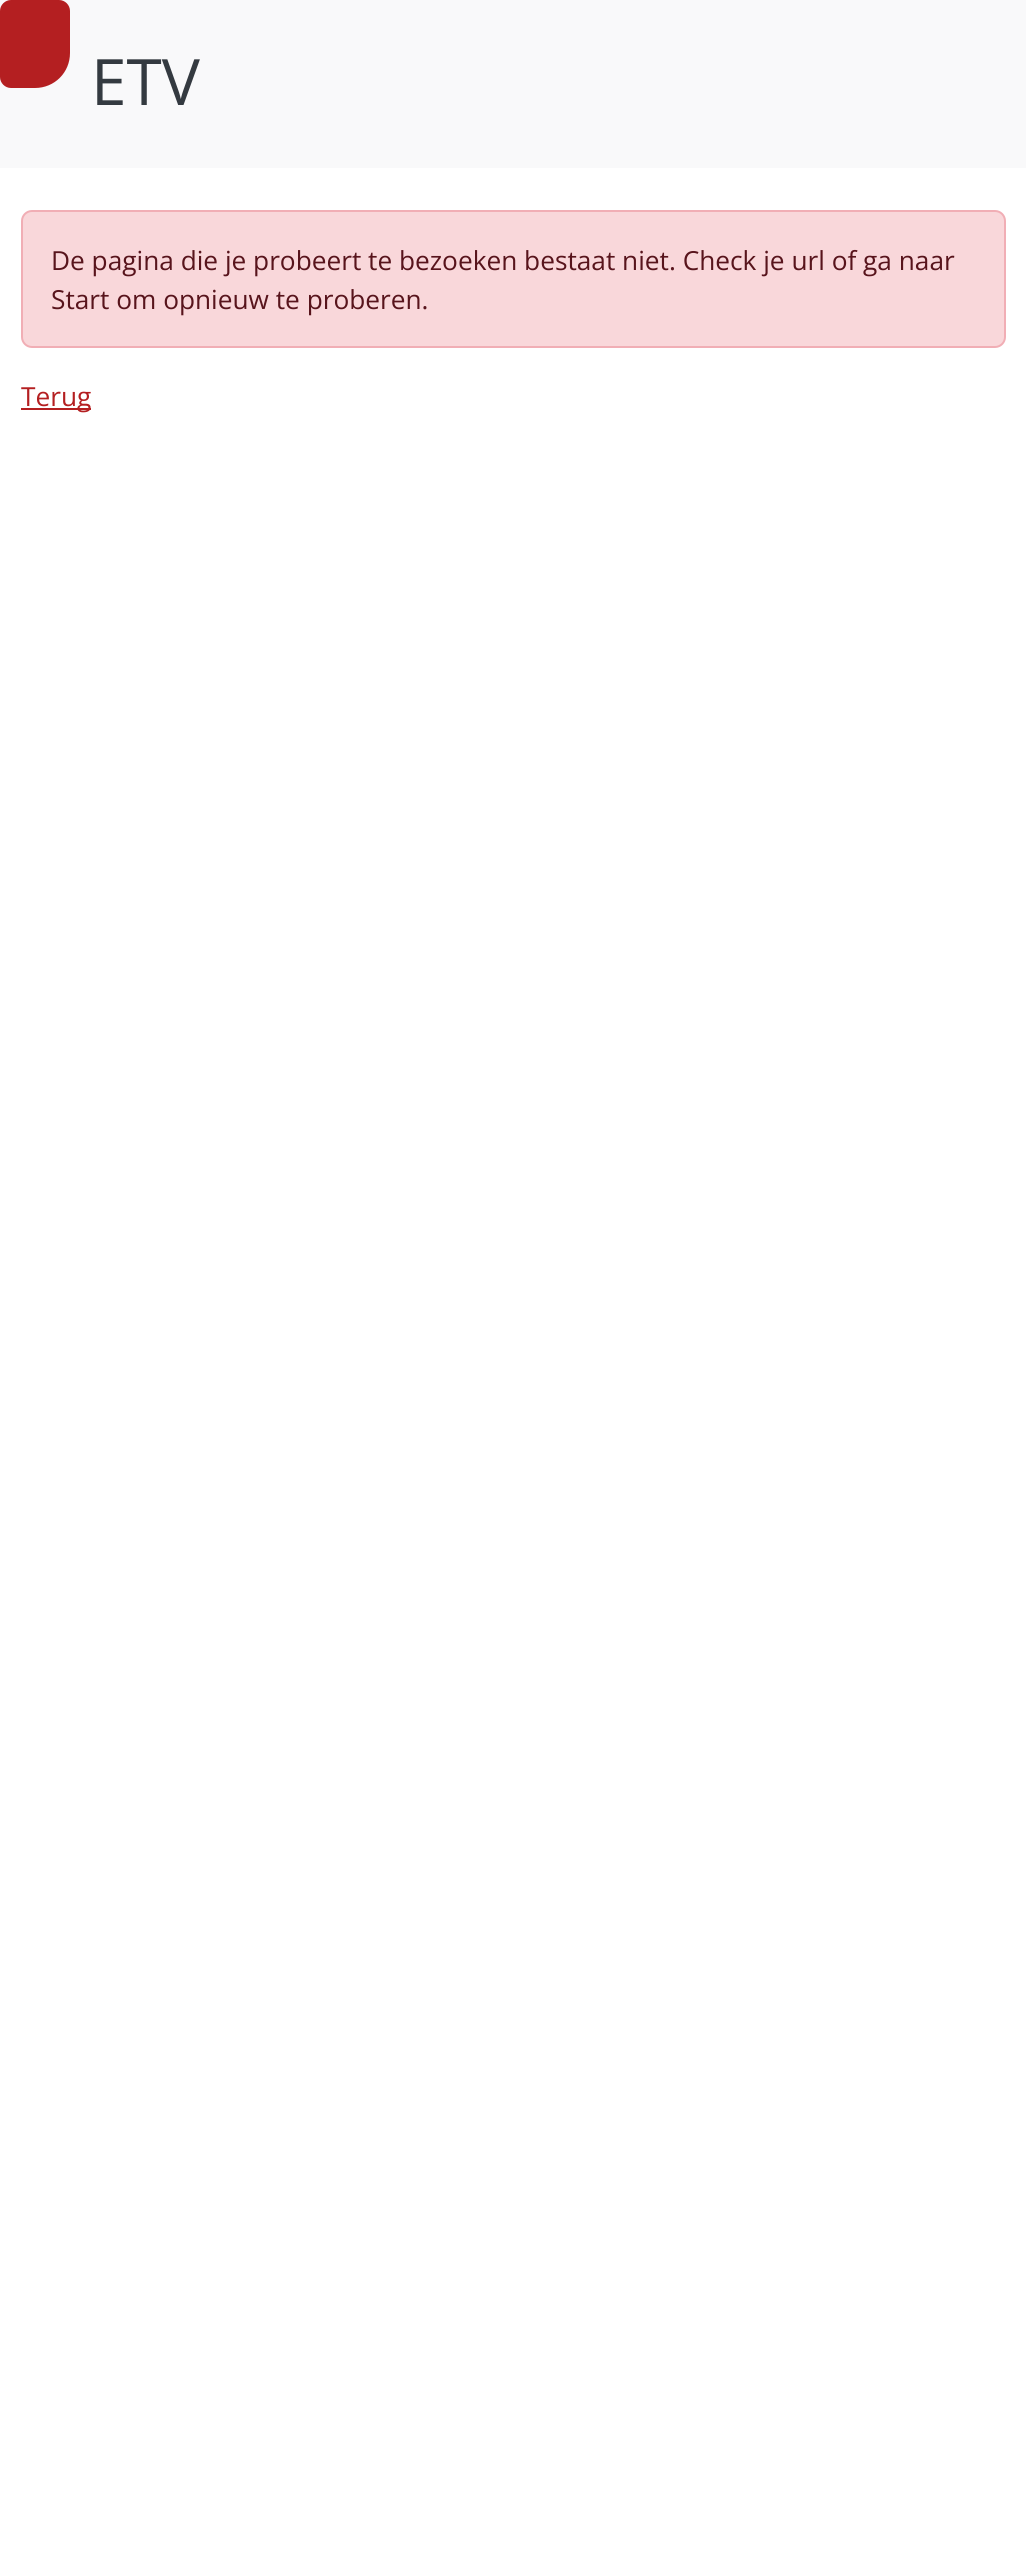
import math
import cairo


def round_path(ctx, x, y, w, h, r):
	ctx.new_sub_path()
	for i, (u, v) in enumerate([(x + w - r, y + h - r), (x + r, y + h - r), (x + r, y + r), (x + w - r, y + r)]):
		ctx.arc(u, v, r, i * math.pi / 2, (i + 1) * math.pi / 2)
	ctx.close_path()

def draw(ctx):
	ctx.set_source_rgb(1, 1, 1)
	ctx.paint()
	ctx.set_source_rgb(0.973, 0.976, 0.98)
	ctx.rectangle(0, 0, 1026, 168)
	ctx.fill()
	ctx.set_source_rgb(0.706, 0.122, 0.129)
	ctx.new_path()
	ctx.move_to(11, 0)
	ctx.line_to(59, 0)
	ctx.curve_to(65, 0, 70, 5, 70, 11)
	ctx.line_to(70, 53)
	ctx.curve_to(70, 72.5, 54.5, 88, 35, 88)
	ctx.line_to(11, 88)
	ctx.curve_to(5, 88, 0, 83, 0, 77)
	ctx.line_to(0, 11)
	ctx.curve_to(0, 5, 5, 0, 11, 0)
	ctx.close_path()
	ctx.fill()
	ctx.select_font_face('Open Sans')
	ctx.set_font_size(64)
	ctx.set_source_rgb(0.204, 0.227, 0.251)
	ctx.move_to(91, 105)
	ctx.show_text('ETV')
	ctx.set_source_rgb(0.973, 0.843, 0.855)
	round_path(ctx, 22, 211, 983, 136, 10)
	ctx.fill_preserve()
	ctx.set_source_rgb(0.945, 0.682, 0.71)
	ctx.stroke()
	ctx.set_font_size(26.25)
	ctx.set_source_rgb(0.345, 0.082, 0.11)
	ctx.move_to(51, 270)
	ctx.show_text('De pagina die je probeert te bezoeken bestaat niet. Check je url of ga naar')
	ctx.move_to(51, 309)
	ctx.show_text('Start om opnieuw te proberen.')
	ctx.set_source_rgb(0.706, 0.122, 0.129)
	ctx.rectangle(21, 408, 70, 2)
	ctx.fill()
	ctx.move_to(21, 406)
	ctx.show_text('Terug')


surface = cairo.ImageSurface(cairo.FORMAT_RGB24, 1026, 2559)
ctx = cairo.Context(surface)
options = cairo.FontOptions()
options.set_hint_metrics(cairo.HINT_METRICS_OFF)
options.set_hint_style(cairo.HINT_STYLE_NONE)
ctx.set_font_options(options)
ctx.set_miter_limit(4)
draw(ctx)
surface.write_to_png('image.png')
